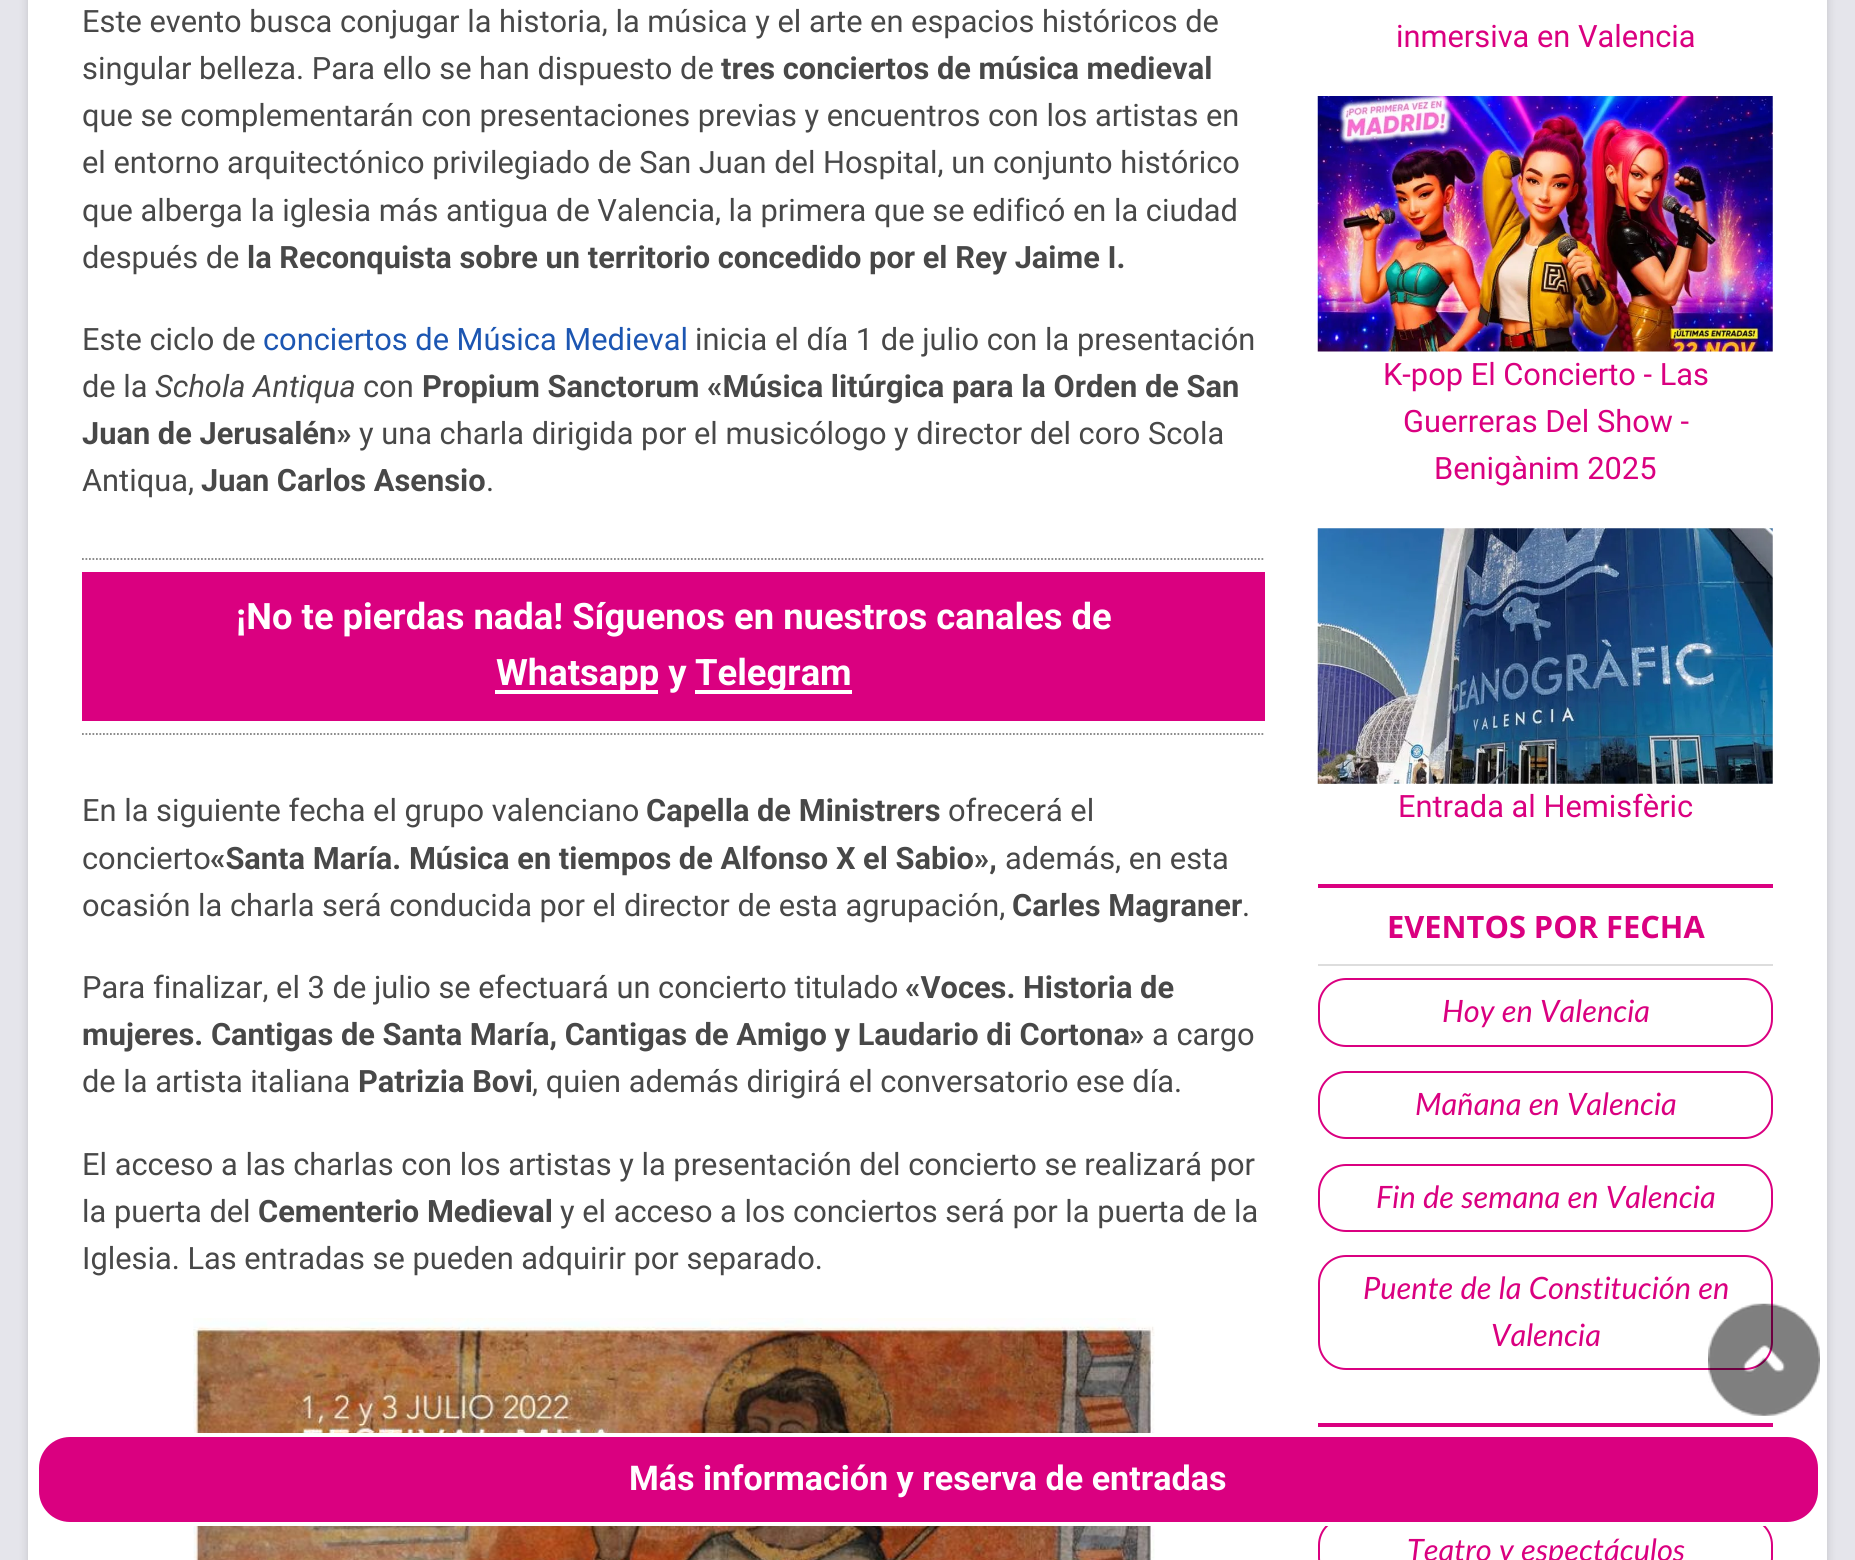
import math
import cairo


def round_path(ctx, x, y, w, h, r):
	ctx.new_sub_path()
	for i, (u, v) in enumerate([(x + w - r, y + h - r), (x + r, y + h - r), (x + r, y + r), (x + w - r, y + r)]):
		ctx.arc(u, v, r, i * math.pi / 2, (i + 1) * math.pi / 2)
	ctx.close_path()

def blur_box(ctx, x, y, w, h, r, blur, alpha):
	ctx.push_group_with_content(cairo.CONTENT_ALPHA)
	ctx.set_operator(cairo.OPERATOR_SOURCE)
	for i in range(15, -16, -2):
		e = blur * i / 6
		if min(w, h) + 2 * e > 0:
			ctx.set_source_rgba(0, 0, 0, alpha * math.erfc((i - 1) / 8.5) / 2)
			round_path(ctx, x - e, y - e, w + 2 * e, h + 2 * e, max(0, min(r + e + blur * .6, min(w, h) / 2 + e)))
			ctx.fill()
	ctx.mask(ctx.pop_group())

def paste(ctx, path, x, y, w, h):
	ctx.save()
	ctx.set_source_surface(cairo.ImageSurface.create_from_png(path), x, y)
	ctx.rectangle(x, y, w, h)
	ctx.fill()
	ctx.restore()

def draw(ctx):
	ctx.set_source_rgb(0.898, 0.898, 0.918)
	ctx.paint()
	ctx.set_source_rgb(0, 0, 0)
	blur_box(ctx, 28, -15, 1799, 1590, 0, 5, 0.15)
	ctx.set_source_rgb(1, 1, 1)
	ctx.rectangle(28, 0, 1799, 1560)
	ctx.fill()
	ctx.select_font_face('Roboto')
	ctx.set_font_size(30.8)
	ctx.set_source_rgb(0.282, 0.282, 0.282)
	ctx.move_to(82, 32)
	ctx.show_text('Este evento busca conjugar la historia, la música y el arte en espacios históricos de')
	ctx.move_to(82, 79)
	ctx.show_text('singular belleza. Para ello se han dispuesto de')
	ctx.select_font_face('Roboto', cairo.FONT_SLANT_NORMAL, cairo.FONT_WEIGHT_BOLD)
	ctx.move_to(721, 79)
	ctx.show_text('tres conciertos de música medieval')
	ctx.select_font_face('Roboto')
	for x, y, s in [
		(82, 126, 'que se complementarán con presentaciones previas y encuentros con los artistas en'),
		(82, 173, 'el entorno arquitectónico privilegiado de San Juan del Hospital, un conjunto histórico'),
		(82, 221, 'que alberga la iglesia más antigua de Valencia, la primera que se edificó en la ciudad'),
		(82, 268, 'después de'),
	]:
		ctx.move_to(x, y)
		ctx.show_text(s)
	ctx.select_font_face('Roboto', cairo.FONT_SLANT_NORMAL, cairo.FONT_WEIGHT_BOLD)
	ctx.move_to(247, 268)
	ctx.show_text('la Reconquista sobre un territorio concedido por el Rey Jaime I.')
	ctx.select_font_face('Roboto')
	ctx.move_to(82, 350)
	ctx.show_text('Este ciclo de')
	ctx.set_source_rgb(0.11, 0.337, 0.698)
	ctx.move_to(263, 350)
	ctx.show_text('conciertos de Música Medieval')
	ctx.set_source_rgb(0.282, 0.282, 0.282)
	ctx.move_to(695, 350)
	ctx.show_text('inicia el día 1 de julio con la presentación')
	ctx.move_to(82, 397)
	ctx.show_text('de la')
	ctx.select_font_face('Roboto', cairo.FONT_SLANT_ITALIC)
	ctx.move_to(155, 397)
	ctx.show_text('Schola Antiqua')
	ctx.select_font_face('Roboto')
	ctx.move_to(363, 397)
	ctx.show_text('con')
	ctx.select_font_face('Roboto', cairo.FONT_SLANT_NORMAL, cairo.FONT_WEIGHT_BOLD)
	ctx.move_to(422, 397)
	ctx.show_text('Propium Sanctorum «Música litúrgica para la Orden de San')
	ctx.move_to(82, 444)
	ctx.show_text('Juan de Jerusalén»')
	ctx.select_font_face('Roboto')
	ctx.move_to(359, 444)
	ctx.show_text('y una charla dirigida por el musicólogo y director del coro Scola')
	ctx.move_to(82, 491)
	ctx.show_text('Antiqua,')
	ctx.select_font_face('Roboto', cairo.FONT_SLANT_NORMAL, cairo.FONT_WEIGHT_BOLD)
	ctx.move_to(201, 491)
	ctx.show_text('Juan Carlos Asensio')
	ctx.select_font_face('Roboto')
	ctx.move_to(486, 491)
	ctx.show_text('.')
	ctx.new_path()
	ctx.move_to(82, 559)
	ctx.line_to(1265, 559)
	ctx.set_source_rgb(0.502, 0.502, 0.502)
	ctx.set_line_width(1.8)
	ctx.set_dash([1.75, 1.75])
	ctx.stroke()
	ctx.new_path()
	ctx.move_to(82, 734)
	ctx.line_to(1265, 734)
	ctx.stroke()
	ctx.set_source_rgb(0.855, 0, 0.502)
	ctx.rectangle(82, 572, 1183, 149)
	ctx.fill()
	ctx.select_font_face('Roboto', cairo.FONT_SLANT_NORMAL, cairo.FONT_WEIGHT_BOLD)
	ctx.set_font_size(36.4)
	ctx.set_source_rgb(1, 1, 1)
	ctx.move_to(236, 629)
	ctx.show_text('¡No te pierdas nada! Síguenos en nuestros canales de')
	ctx.rectangle(495, 690, 163, 4)
	ctx.fill()
	ctx.move_to(496, 685)
	ctx.show_text('Whatsapp y')
	ctx.rectangle(695, 690, 157, 4)
	ctx.fill()
	ctx.move_to(695, 685)
	ctx.show_text('Telegram')
	ctx.select_font_face('Roboto')
	ctx.set_font_size(30.8)
	ctx.set_source_rgb(0.282, 0.282, 0.282)
	ctx.move_to(82, 821)
	ctx.show_text('En la siguiente fecha el grupo valenciano')
	ctx.select_font_face('Roboto', cairo.FONT_SLANT_NORMAL, cairo.FONT_WEIGHT_BOLD)
	ctx.move_to(646, 821)
	ctx.show_text('Capella de Ministrers')
	ctx.select_font_face('Roboto')
	ctx.move_to(948, 821)
	ctx.show_text('ofrecerá el')
	ctx.move_to(82, 869)
	ctx.show_text('concierto')
	ctx.select_font_face('Roboto', cairo.FONT_SLANT_NORMAL, cairo.FONT_WEIGHT_BOLD)
	ctx.move_to(210, 869)
	ctx.show_text('«Santa María. Música en tiempos de Alfonso X el Sabio»,')
	ctx.select_font_face('Roboto')
	ctx.move_to(1005, 869)
	ctx.show_text('además, en esta')
	ctx.move_to(82, 916)
	ctx.show_text('ocasión la charla será conducida por el director de esta agrupación,')
	ctx.select_font_face('Roboto', cairo.FONT_SLANT_NORMAL, cairo.FONT_WEIGHT_BOLD)
	ctx.move_to(1012, 916)
	ctx.show_text('Carles Magraner')
	ctx.select_font_face('Roboto')
	ctx.move_to(1242, 916)
	ctx.show_text('.')
	ctx.move_to(82, 998)
	ctx.show_text('Para finalizar, el 3 de julio se efectuará un concierto titulado')
	ctx.select_font_face('Roboto', cairo.FONT_SLANT_NORMAL, cairo.FONT_WEIGHT_BOLD)
	for x, y, s in [
		(905, 998, '«Voces. Historia de'),
		(82, 1045, 'mujeres. Cantigas de Santa María, Cantigas de Amigo y Laudario di Cortona'),
		(1129, 1045, '»'),
	]:
		ctx.move_to(x, y)
		ctx.show_text(s)
	ctx.select_font_face('Roboto')
	ctx.move_to(1152, 1045)
	ctx.show_text('a cargo')
	ctx.move_to(82, 1092)
	ctx.show_text('de la artista italiana')
	ctx.select_font_face('Roboto', cairo.FONT_SLANT_NORMAL, cairo.FONT_WEIGHT_BOLD)
	ctx.move_to(358, 1092)
	ctx.show_text('Patrizia Bovi')
	ctx.select_font_face('Roboto')
	for x, y, s in [
		(532, 1092, ', quien además dirigirá el conversatorio ese día.'),
		(82, 1175, 'El acceso a las charlas con los artistas y la presentación del concierto se realizará por'),
		(82, 1222, 'la puerta del'),
	]:
		ctx.move_to(x, y)
		ctx.show_text(s)
	ctx.select_font_face('Roboto', cairo.FONT_SLANT_NORMAL, cairo.FONT_WEIGHT_BOLD)
	ctx.move_to(258, 1222)
	ctx.show_text('Cementerio Medieval')
	ctx.select_font_face('Roboto')
	ctx.move_to(560, 1222)
	ctx.show_text('y el acceso a los conciertos será por la puerta de la')
	ctx.move_to(82, 1269)
	ctx.show_text('Iglesia. Las entradas se pueden adquirir por separado.')
	paste(ctx, 'media/1.png', 193, 1318, 962, 242)
	round_path(ctx, 1319, 1518, 453, 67, 27)
	ctx.set_source_rgb(0.855, 0, 0.502)
	ctx.set_line_width(2)
	ctx.set_dash([])
	ctx.stroke()
	round_path(ctx, 37, 1435, 1783, 89, 33)
	ctx.fill_preserve()
	ctx.set_source_rgb(1, 1, 1)
	ctx.set_line_width(4)
	ctx.stroke()
	ctx.select_font_face('Roboto', cairo.FONT_SLANT_NORMAL, cairo.FONT_WEIGHT_BOLD)
	ctx.set_font_size(34.1)
	ctx.move_to(629, 1490)
	ctx.show_text('Más información y reserva de entradas')
	ctx.select_font_face('Roboto')
	ctx.set_font_size(30.8)
	ctx.set_source_rgb(0.855, 0, 0.502)
	ctx.move_to(1396, 47)
	ctx.show_text('inmersiva en Valencia')
	paste(ctx, 'media/2.png', 1317, 96, 456, 256)
	for x, y, s in [
		(1383, 385, 'K-pop El Concierto - Las'),
		(1403, 432, 'Guerreras Del Show -'),
		(1434, 479, 'Benigànim 2025'),
	]:
		ctx.move_to(x, y)
		ctx.show_text(s)
	paste(ctx, 'media/3.png', 1317, 528, 456, 256)
	ctx.move_to(1398, 817)
	ctx.show_text('Entrada al Hemisfèric')
	ctx.rectangle(1318, 884, 455, 4)
	ctx.fill()
	ctx.set_source_rgb(0.867, 0.867, 0.867)
	ctx.rectangle(1318, 964, 455, 2)
	ctx.fill()
	ctx.select_font_face('Open Sans', cairo.FONT_SLANT_NORMAL, cairo.FONT_WEIGHT_BOLD)
	ctx.set_source_rgb(0.855, 0, 0.502)
	ctx.move_to(1387, 938)
	ctx.show_text('EVENTOS POR FECHA')
	round_path(ctx, 1319, 979, 453, 67, 27)
	ctx.set_line_width(2)
	ctx.stroke()
	ctx.select_font_face('Lato', cairo.FONT_SLANT_ITALIC)
	ctx.move_to(1442, 1022)
	ctx.show_text('Hoy en Valencia')
	round_path(ctx, 1319, 1072, 453, 66, 27)
	ctx.stroke()
	ctx.move_to(1415, 1115)
	ctx.show_text('Mañana en Valencia')
	round_path(ctx, 1319, 1165, 453, 66, 27)
	ctx.stroke()
	ctx.move_to(1376, 1208)
	ctx.show_text('Fin de semana en Valencia')
	round_path(ctx, 1319, 1256, 453, 113, 27)
	ctx.stroke()
	ctx.move_to(1363, 1299)
	ctx.show_text('Puente de la Constitución en')
	ctx.move_to(1491, 1346)
	ctx.show_text('Valencia')
	ctx.rectangle(1318, 1423, 455, 4)
	ctx.fill()
	ctx.move_to(1407, 1561)
	ctx.show_text('Teatro y espectáculos')
	paste(ctx, 'media/4.png', 1708, 1303, 112, 113)


surface = cairo.ImageSurface(cairo.FORMAT_RGB24, 1855, 1560)
ctx = cairo.Context(surface)
options = cairo.FontOptions()
options.set_hint_metrics(cairo.HINT_METRICS_OFF)
options.set_hint_style(cairo.HINT_STYLE_NONE)
ctx.set_font_options(options)
ctx.set_miter_limit(4)
draw(ctx)
surface.write_to_png('image.png')
